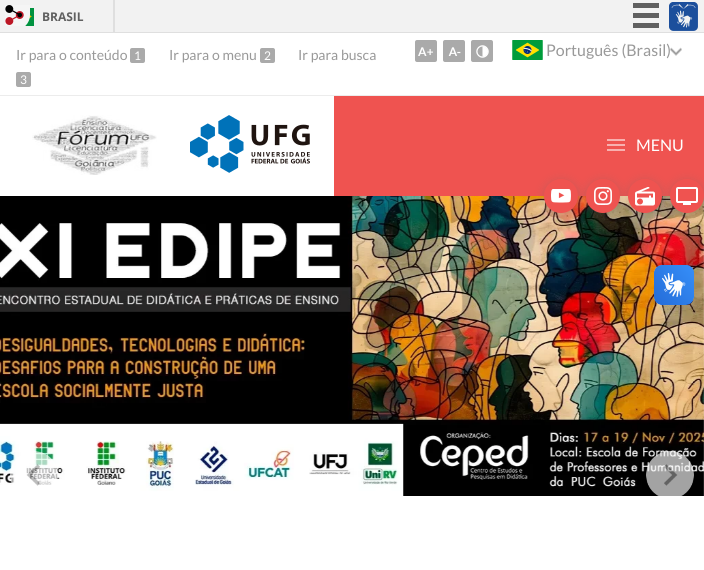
import math
import cairo


def round_path(ctx, x, y, w, h, r):
	ctx.new_sub_path()
	for i, (u, v) in enumerate([(x + w - r, y + h - r), (x + r, y + h - r), (x + r, y + r), (x + w - r, y + r)]):
		ctx.arc(u, v, r, i * math.pi / 2, (i + 1) * math.pi / 2)
	ctx.close_path()

def blur_box(ctx, x, y, w, h, r, blur, alpha):
	ctx.push_group_with_content(cairo.CONTENT_ALPHA)
	ctx.set_operator(cairo.OPERATOR_SOURCE)
	for i in range(15, -16, -2):
		e = blur * i / 6
		if min(w, h) + 2 * e > 0:
			ctx.set_source_rgba(0, 0, 0, alpha * math.erfc((i - 1) / 8.5) / 2)
			round_path(ctx, x - e, y - e, w + 2 * e, h + 2 * e, max(0, min(r + e + blur * .6, min(w, h) / 2 + e)))
			ctx.fill()
	ctx.mask(ctx.pop_group())

def paste(ctx, path, x, y, w, h):
	ctx.save()
	ctx.set_source_surface(cairo.ImageSurface.create_from_png(path), x, y)
	ctx.rectangle(x, y, w, h)
	ctx.fill()
	ctx.restore()

def draw(ctx):
	ctx.set_source_rgb(0.949, 0.949, 0.949)
	ctx.paint()
	paste(ctx, 'media/2.png', 25, 8, 9, 18)
	paste(ctx, 'media/1.png', 5, 5, 25, 21)
	ctx.set_source_rgb(0.875, 0.875, 0.875)
	ctx.rectangle(0, 32, 704, 1)
	ctx.fill()
	ctx.rectangle(113, 0, 2, 32)
	ctx.fill()
	ctx.select_font_face('Open Sans', cairo.FONT_SLANT_NORMAL, cairo.FONT_WEIGHT_BOLD)
	ctx.set_font_size(12)
	ctx.set_source_rgb(0.376, 0.376, 0.376)
	ctx.move_to(42, 21)
	ctx.show_text('BRASIL')
	ctx.rectangle(633, 3, 26, 5)
	ctx.rectangle(633, 13, 26, 5)
	ctx.rectangle(633, 23, 26, 5)
	ctx.fill()
	paste(ctx, 'media/3.png', 669, 2, 29, 29)
	ctx.set_source_rgb(1, 1, 1)
	ctx.rectangle(0, 33, 704, 62)
	ctx.fill()
	ctx.set_source_rgb(0.925, 0.925, 0.925)
	ctx.rectangle(0, 95, 704, 1)
	ctx.fill()
	ctx.select_font_face('Lato')
	ctx.set_font_size(14)
	ctx.set_source_rgb(0.6, 0.6, 0.6)
	ctx.move_to(16, 60)
	ctx.show_text('Ir para o conteúdo')
	ctx.set_source_rgb(0.667, 0.667, 0.667)
	round_path(ctx, 130, 48, 15, 15, 2)
	ctx.fill()
	ctx.set_font_size(12)
	ctx.set_source_rgb(1, 1, 1)
	ctx.move_to(134, 60)
	ctx.show_text('1')
	ctx.set_font_size(14)
	ctx.set_source_rgb(0.6, 0.6, 0.6)
	ctx.move_to(298, 60)
	ctx.show_text('Ir para busca')
	ctx.set_source_rgb(0.667, 0.667, 0.667)
	round_path(ctx, 16, 72, 15, 15, 2)
	ctx.fill()
	ctx.set_font_size(12)
	ctx.set_source_rgb(1, 1, 1)
	ctx.move_to(20, 84)
	ctx.show_text('3')
	ctx.set_font_size(14)
	ctx.set_source_rgb(0.6, 0.6, 0.6)
	ctx.move_to(169, 60)
	ctx.show_text('Ir para o menu')
	ctx.set_source_rgb(0.667, 0.667, 0.667)
	round_path(ctx, 260, 48, 15, 15, 2)
	ctx.fill()
	ctx.set_font_size(12)
	ctx.set_source_rgb(1, 1, 1)
	ctx.move_to(264, 60)
	ctx.show_text('2')
	ctx.set_source_rgb(0.667, 0.667, 0.667)
	round_path(ctx, 415, 40, 22, 22, 2)
	ctx.fill()
	paste(ctx, 'media/4.png', 418, 47, 15, 9)
	round_path(ctx, 443, 40, 22, 22, 2)
	ctx.fill()
	paste(ctx, 'media/5.png', 448, 47, 13, 9)
	round_path(ctx, 471, 40, 22, 22, 2)
	ctx.fill()
	paste(ctx, 'media/6.png', 476, 45, 13, 13)
	paste(ctx, 'media/7.png', 670, 47, 12, 9)
	paste(ctx, 'media/8.png', 512, 40, 31, 20)
	ctx.set_font_size(16)
	ctx.set_source_rgb(0.6, 0.6, 0.6)
	ctx.move_to(546, 56)
	ctx.show_text('Português (Brasil)')
	ctx.set_source_rgb(1, 1, 1)
	ctx.rectangle(0, 96, 334, 100)
	ctx.fill()
	paste(ctx, 'media/9.png', 32, 115, 125, 60)
	paste(ctx, 'media/10.png', 190, 115, 120, 58)
	ctx.set_source_rgb(0.937, 0.325, 0.314)
	ctx.rectangle(334, 96, 370, 100)
	ctx.fill()
	paste(ctx, 'media/11.png', 607, 139, 18, 12)
	ctx.set_source_rgb(1, 1, 1)
	ctx.move_to(636, 151)
	ctx.show_text('MENU')
	round_path(ctx, 0, 196, 704, 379, 5)
	ctx.fill()
	paste(ctx, 'media/16.png', 0, 196, 704, 300)
	ctx.set_source_rgb(0.4, 0.4, 0.4)
	blur_box(ctx, 544, 181, 34, 34, 17, 5, 0.3)
	ctx.set_source_rgb(0.937, 0.325, 0.314)
	ctx.arc(561, 196, 17, 0, 2 * math.pi)
	ctx.fill()
	paste(ctx, 'media/12.png', 551, 189, 20, 14)
	ctx.set_source_rgb(0.4, 0.4, 0.4)
	blur_box(ctx, 586, 181, 34, 34, 17, 5, 0.3)
	ctx.set_source_rgb(0.937, 0.325, 0.314)
	ctx.arc(603, 196, 17, 0, 2 * math.pi)
	ctx.fill()
	paste(ctx, 'media/13.png', 594, 187, 18, 18)
	ctx.set_source_rgb(0.4, 0.4, 0.4)
	blur_box(ctx, 628, 181, 34, 34, 17, 5, 0.3)
	ctx.set_source_rgb(0.937, 0.325, 0.314)
	ctx.arc(645, 196, 17, 0, 2 * math.pi)
	ctx.fill()
	paste(ctx, 'media/14.png', 635, 187, 20, 19)
	ctx.set_source_rgb(0.4, 0.4, 0.4)
	blur_box(ctx, 670, 181, 34, 34, 17, 5, 0.3)
	ctx.set_source_rgb(0.937, 0.325, 0.314)
	ctx.arc(687, 196, 17, 0, 2 * math.pi)
	ctx.fill()
	paste(ctx, 'media/15.png', 676, 187, 22, 18)
	paste(ctx, 'media/17.png', 10, 451, 48, 35)
	paste(ctx, 'media/18.png', 646, 451, 48, 45)
	paste(ctx, 'media/19.png', 654, 265, 40, 40)
	paste(ctx, 'media/20.png', 654, 265, 40, 40)


surface = cairo.ImageSurface(cairo.FORMAT_RGB24, 704, 570)
ctx = cairo.Context(surface)
options = cairo.FontOptions()
options.set_hint_metrics(cairo.HINT_METRICS_OFF)
options.set_hint_style(cairo.HINT_STYLE_NONE)
ctx.set_font_options(options)
ctx.set_miter_limit(4)
draw(ctx)
surface.write_to_png('image.png')
